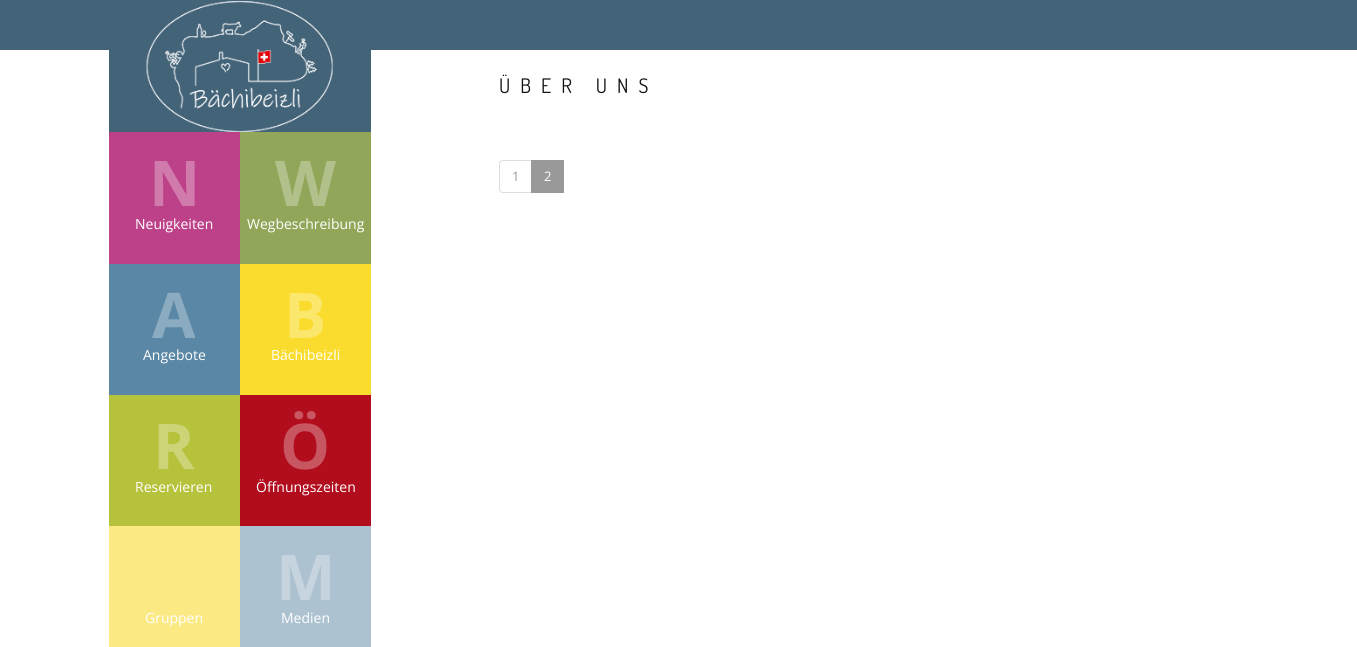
import math
import cairo


def write_spaced(ctx, x, y, s, letter, word):
	ctx.move_to(x, y)
	for ch in s:
		ctx.show_text(ch)
		ctx.rel_move_to(letter + word * (ch == ' '), 0)

def paste(ctx, path, x, y, w, h):
	ctx.save()
	ctx.set_source_surface(cairo.ImageSurface.create_from_png(path), x, y)
	ctx.rectangle(x, y, w, h)
	ctx.fill()
	ctx.restore()

def draw(ctx):
	ctx.set_source_rgb(1, 1, 1)
	ctx.paint()
	ctx.set_source_rgb(0.263, 0.388, 0.475)
	ctx.rectangle(0, 0, 1357, 50)
	ctx.fill()
	ctx.select_font_face('Dosis')
	ctx.set_font_size(20)
	ctx.set_source_rgb(0.067, 0.067, 0.067)
	write_spaced(ctx, 499, 93, 'ÜBER UNS', 10, 0)
	ctx.new_path()
	ctx.move_to(503, 160.5)
	ctx.line_to(531.5, 160.5)
	ctx.line_to(531.5, 192.5)
	ctx.line_to(503, 192.5)
	ctx.curve_to(501, 192.5, 499.5, 191, 499.5, 189)
	ctx.line_to(499.5, 164)
	ctx.curve_to(499.5, 162, 501, 160.5, 503, 160.5)
	ctx.close_path()
	ctx.set_source_rgb(0.867, 0.867, 0.867)
	ctx.set_line_width(1)
	ctx.stroke()
	ctx.select_font_face('Open Sans')
	ctx.set_font_size(13)
	ctx.set_source_rgb(0.6, 0.6, 0.6)
	ctx.move_to(512, 181)
	ctx.show_text('1')
	ctx.rectangle(531, 160, 33, 33)
	ctx.fill()
	ctx.set_source_rgb(1, 1, 1)
	ctx.move_to(544, 181)
	ctx.show_text('2')
	ctx.set_source_rgb(0.263, 0.388, 0.475)
	ctx.rectangle(109, 50, 262, 82)
	ctx.fill()
	paste(ctx, 'media/1.png', 146, 1, 187, 131)
	ctx.set_source_rgb(0.741, 0.255, 0.537)
	ctx.rectangle(109, 132, 131, 132)
	ctx.fill()
	ctx.select_font_face('Open Sans', cairo.FONT_SLANT_NORMAL, cairo.FONT_WEIGHT_BOLD)
	ctx.set_font_size(63)
	ctx.set_source_rgb(0.82, 0.478, 0.675)
	ctx.move_to(149, 206)
	ctx.show_text('N')
	ctx.select_font_face('Open Sans')
	ctx.set_font_size(14)
	ctx.set_source_rgb(1, 1, 1)
	ctx.move_to(135, 229)
	ctx.show_text('Neuigkeiten')
	ctx.set_source_rgb(0.569, 0.651, 0.349)
	ctx.rectangle(240, 132, 131, 132)
	ctx.fill()
	ctx.select_font_face('Open Sans', cairo.FONT_SLANT_NORMAL, cairo.FONT_WEIGHT_BOLD)
	ctx.set_font_size(63)
	ctx.set_source_rgb(0.698, 0.757, 0.545)
	ctx.move_to(275, 206)
	ctx.show_text('W')
	ctx.select_font_face('Open Sans')
	ctx.set_font_size(14)
	ctx.set_source_rgb(1, 1, 1)
	ctx.move_to(247, 229)
	ctx.show_text('Wegbeschreibung')
	ctx.set_source_rgb(0.349, 0.529, 0.647)
	ctx.rectangle(109, 264, 131, 131)
	ctx.fill()
	ctx.select_font_face('Open Sans', cairo.FONT_SLANT_NORMAL, cairo.FONT_WEIGHT_BOLD)
	ctx.set_font_size(63)
	ctx.set_source_rgb(0.545, 0.671, 0.753)
	ctx.move_to(152, 338)
	ctx.show_text('A')
	ctx.select_font_face('Open Sans')
	ctx.set_font_size(14)
	ctx.set_source_rgb(1, 1, 1)
	ctx.move_to(143, 360)
	ctx.show_text('Angebote')
	ctx.set_source_rgb(0.98, 0.863, 0.184)
	ctx.rectangle(240, 264, 131, 131)
	ctx.fill()
	ctx.select_font_face('Open Sans', cairo.FONT_SLANT_NORMAL, cairo.FONT_WEIGHT_BOLD)
	ctx.set_font_size(63)
	ctx.set_source_rgb(0.988, 0.906, 0.427)
	ctx.move_to(284, 338)
	ctx.show_text('B')
	ctx.select_font_face('Open Sans')
	ctx.set_font_size(14)
	ctx.set_source_rgb(1, 1, 1)
	ctx.move_to(271, 360)
	ctx.show_text('Bächibeizli')
	ctx.set_source_rgb(0.718, 0.761, 0.235)
	ctx.rectangle(109, 395, 131, 131)
	ctx.fill()
	ctx.select_font_face('Open Sans', cairo.FONT_SLANT_NORMAL, cairo.FONT_WEIGHT_BOLD)
	ctx.set_font_size(63)
	ctx.set_source_rgb(0.804, 0.831, 0.467)
	ctx.move_to(153, 469)
	ctx.show_text('R')
	ctx.select_font_face('Open Sans')
	ctx.set_font_size(14)
	ctx.set_source_rgb(1, 1, 1)
	ctx.move_to(135, 492)
	ctx.show_text('Reservieren')
	ctx.set_source_rgb(0.694, 0.051, 0.114)
	ctx.rectangle(240, 395, 131, 131)
	ctx.fill()
	ctx.select_font_face('Open Sans', cairo.FONT_SLANT_NORMAL, cairo.FONT_WEIGHT_BOLD)
	ctx.set_font_size(63)
	ctx.set_source_rgb(0.784, 0.337, 0.38)
	ctx.move_to(280, 469)
	ctx.show_text('Ö')
	ctx.select_font_face('Open Sans')
	ctx.set_font_size(14)
	ctx.set_source_rgb(1, 1, 1)
	ctx.move_to(256, 492)
	ctx.show_text('Öffnungszeiten')
	ctx.set_source_rgb(0.984, 0.914, 0.518)
	ctx.rectangle(109, 526, 131, 121)
	ctx.fill()
	ctx.set_source_rgb(1, 1, 1)
	ctx.move_to(145, 623)
	ctx.show_text('Gruppen')
	ctx.set_source_rgb(0.678, 0.761, 0.82)
	ctx.rectangle(240, 526, 131, 121)
	ctx.fill()
	ctx.select_font_face('Open Sans', cairo.FONT_SLANT_NORMAL, cairo.FONT_WEIGHT_BOLD)
	ctx.set_font_size(63)
	ctx.set_source_rgb(0.776, 0.831, 0.875)
	ctx.move_to(276, 600)
	ctx.show_text('M')
	ctx.select_font_face('Open Sans')
	ctx.set_font_size(14)
	ctx.set_source_rgb(1, 1, 1)
	ctx.move_to(281, 623)
	ctx.show_text('Medien')


surface = cairo.ImageSurface(cairo.FORMAT_RGB24, 1357, 647)
ctx = cairo.Context(surface)
options = cairo.FontOptions()
options.set_hint_metrics(cairo.HINT_METRICS_OFF)
options.set_hint_style(cairo.HINT_STYLE_NONE)
ctx.set_font_options(options)
ctx.set_miter_limit(4)
draw(ctx)
surface.write_to_png('image.png')
